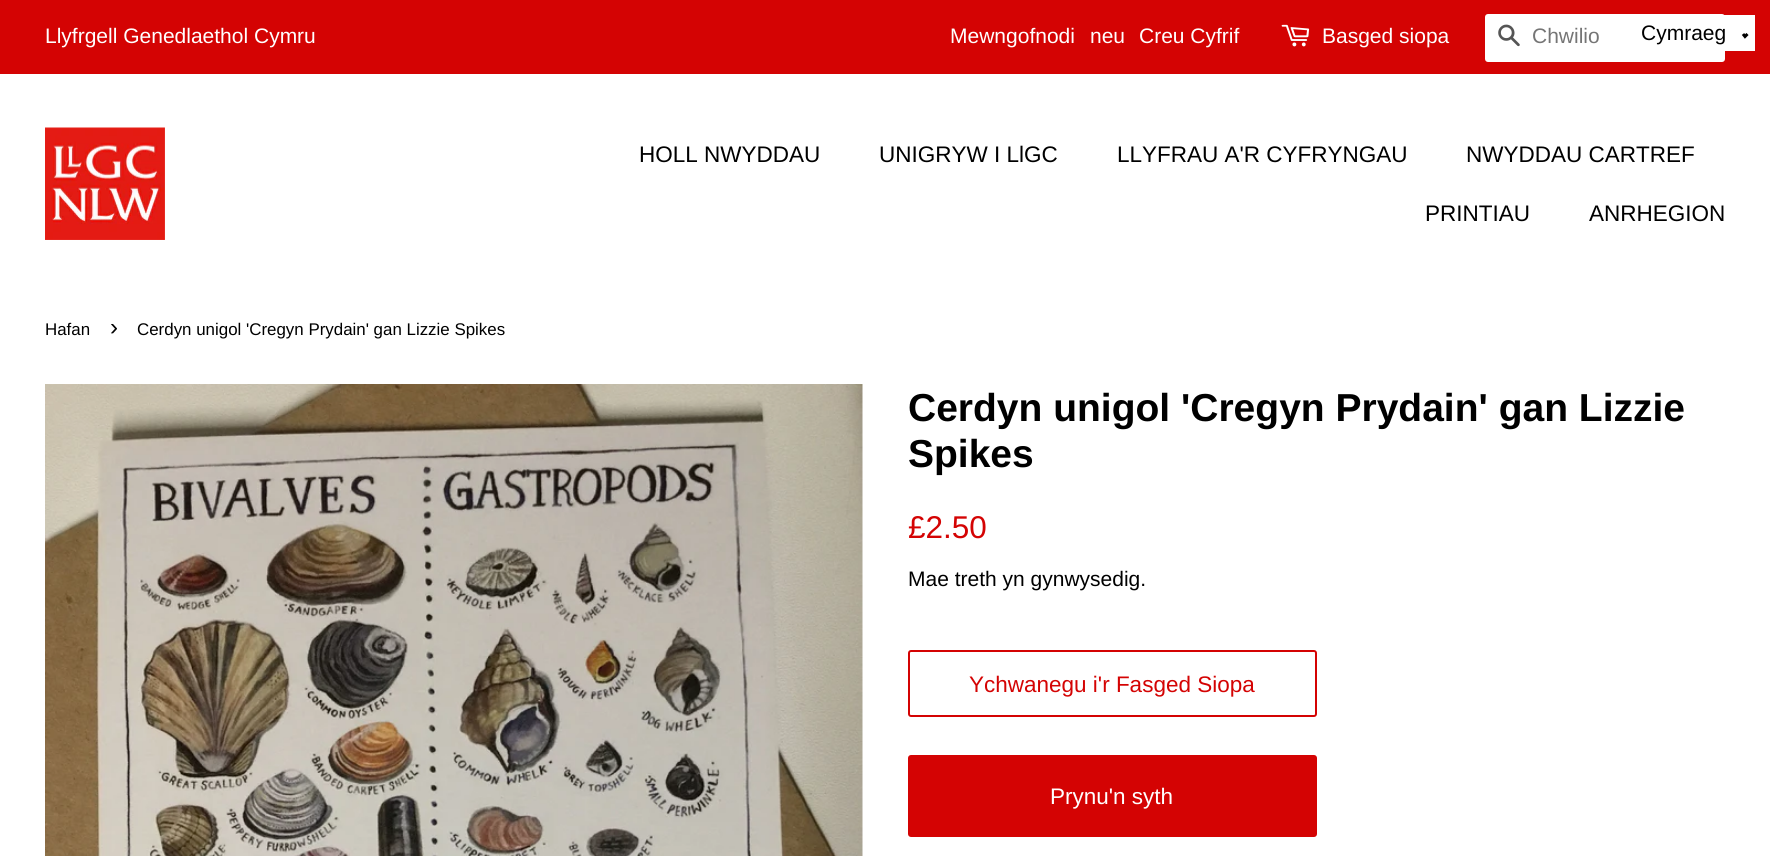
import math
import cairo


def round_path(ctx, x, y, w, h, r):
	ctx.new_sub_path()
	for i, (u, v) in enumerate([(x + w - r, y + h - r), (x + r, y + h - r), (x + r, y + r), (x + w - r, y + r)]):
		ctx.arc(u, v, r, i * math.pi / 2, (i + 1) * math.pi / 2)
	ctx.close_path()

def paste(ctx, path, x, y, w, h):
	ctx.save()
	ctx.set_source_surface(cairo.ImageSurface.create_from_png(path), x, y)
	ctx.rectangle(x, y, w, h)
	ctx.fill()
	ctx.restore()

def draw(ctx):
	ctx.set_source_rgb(1, 1, 1)
	ctx.paint()
	ctx.set_source_rgb(0.831, 0.012, 0.012)
	ctx.rectangle(0, 0, 1770, 74)
	ctx.fill()
	ctx.set_source_rgb(1, 1, 1)
	round_path(ctx, 1485, 14, 240, 48, 3)
	ctx.fill()
	ctx.rectangle(1724, 15, 31, 36)
	ctx.fill()
	ctx.select_font_face('Liberation Sans')
	ctx.set_font_size(21)
	ctx.set_source_rgb(0, 0, 0)
	ctx.move_to(1641, 40)
	ctx.show_text('Cymraeg')
	ctx.new_path()
	ctx.move_to(1743, 34)
	ctx.line_to(1745, 36.5)
	ctx.line_to(1747.5, 34)
	ctx.set_line_width(3)
	ctx.stroke()
	ctx.set_source_rgb(1, 1, 1)
	for x, y, s in [
		(45, 43, 'Llyfrgell Genedlaethol Cymru'),
		(950, 43, 'Mewngofnodi'),
		(1090, 43, 'neu'),
		(1139, 43, 'Creu Cyfrif'),
	]:
		ctx.move_to(x, y)
		ctx.show_text(s)
	paste(ctx, 'media/1.png', 1281, 24, 29, 23)
	ctx.move_to(1322, 43)
	ctx.show_text('Basged siopa')
	paste(ctx, 'media/2.png', 1498, 24, 22, 23)
	ctx.set_source_rgb(0.459, 0.459, 0.459)
	ctx.move_to(1532, 43)
	ctx.show_text('Chwilio')
	paste(ctx, 'media/3.png', 45, 127, 120, 113)
	ctx.set_font_size(22.5)
	ctx.set_source_rgb(0, 0, 0)
	for x, y, s in [
		(639, 162, 'HOLL NWYDDAU'),
		(879, 162, 'UNIGRYW I LlGC'),
		(1117, 162, 'LLYFRAU A\'R CYFRYNGAU'),
		(1466, 162, 'NWYDDAU CARTREF'),
		(1425, 221, 'PRINTIAU'),
		(1589, 221, 'ANRHEGION'),
	]:
		ctx.move_to(x, y)
		ctx.show_text(s)
	ctx.set_font_size(16.9)
	ctx.move_to(45, 335)
	ctx.show_text('Hafan')
	ctx.set_font_size(24)
	ctx.move_to(110, 335)
	ctx.show_text('›')
	ctx.set_font_size(16.9)
	ctx.move_to(137, 335)
	ctx.show_text('Cerdyn unigol \'Cregyn Prydain\' gan Lizzie Spikes')
	paste(ctx, 'media/4.png', 45, 384, 818, 472)
	ctx.select_font_face('Liberation Sans', cairo.FONT_SLANT_NORMAL, cairo.FONT_WEIGHT_BOLD)
	ctx.set_font_size(39)
	ctx.move_to(908, 421)
	ctx.show_text('Cerdyn unigol \'Cregyn Prydain\' gan Lizzie')
	ctx.move_to(908, 467)
	ctx.show_text('Spikes')
	ctx.select_font_face('Liberation Sans')
	ctx.set_font_size(31.5)
	ctx.set_source_rgb(0.831, 0.012, 0.012)
	ctx.move_to(908, 538)
	ctx.show_text('£2.50')
	ctx.set_font_size(21)
	ctx.set_source_rgb(0, 0, 0)
	ctx.move_to(908, 586)
	ctx.show_text('Mae treth yn gynwysedig.')
	round_path(ctx, 909, 651, 407, 65, 2)
	ctx.set_source_rgb(0.831, 0.012, 0.012)
	ctx.set_line_width(2)
	ctx.stroke()
	ctx.set_font_size(22.5)
	ctx.move_to(969, 692)
	ctx.show_text('Ychwanegu i\'r Fasged Siopa')
	round_path(ctx, 908, 755, 409, 82, 3)
	ctx.fill()
	ctx.set_source_rgb(1, 1, 1)
	ctx.move_to(1050, 804)
	ctx.show_text('Prynu\'n syth')


surface = cairo.ImageSurface(cairo.FORMAT_RGB24, 1770, 856)
ctx = cairo.Context(surface)
options = cairo.FontOptions()
options.set_hint_metrics(cairo.HINT_METRICS_OFF)
options.set_hint_style(cairo.HINT_STYLE_NONE)
ctx.set_font_options(options)
ctx.set_miter_limit(4)
draw(ctx)
surface.write_to_png('image.png')
